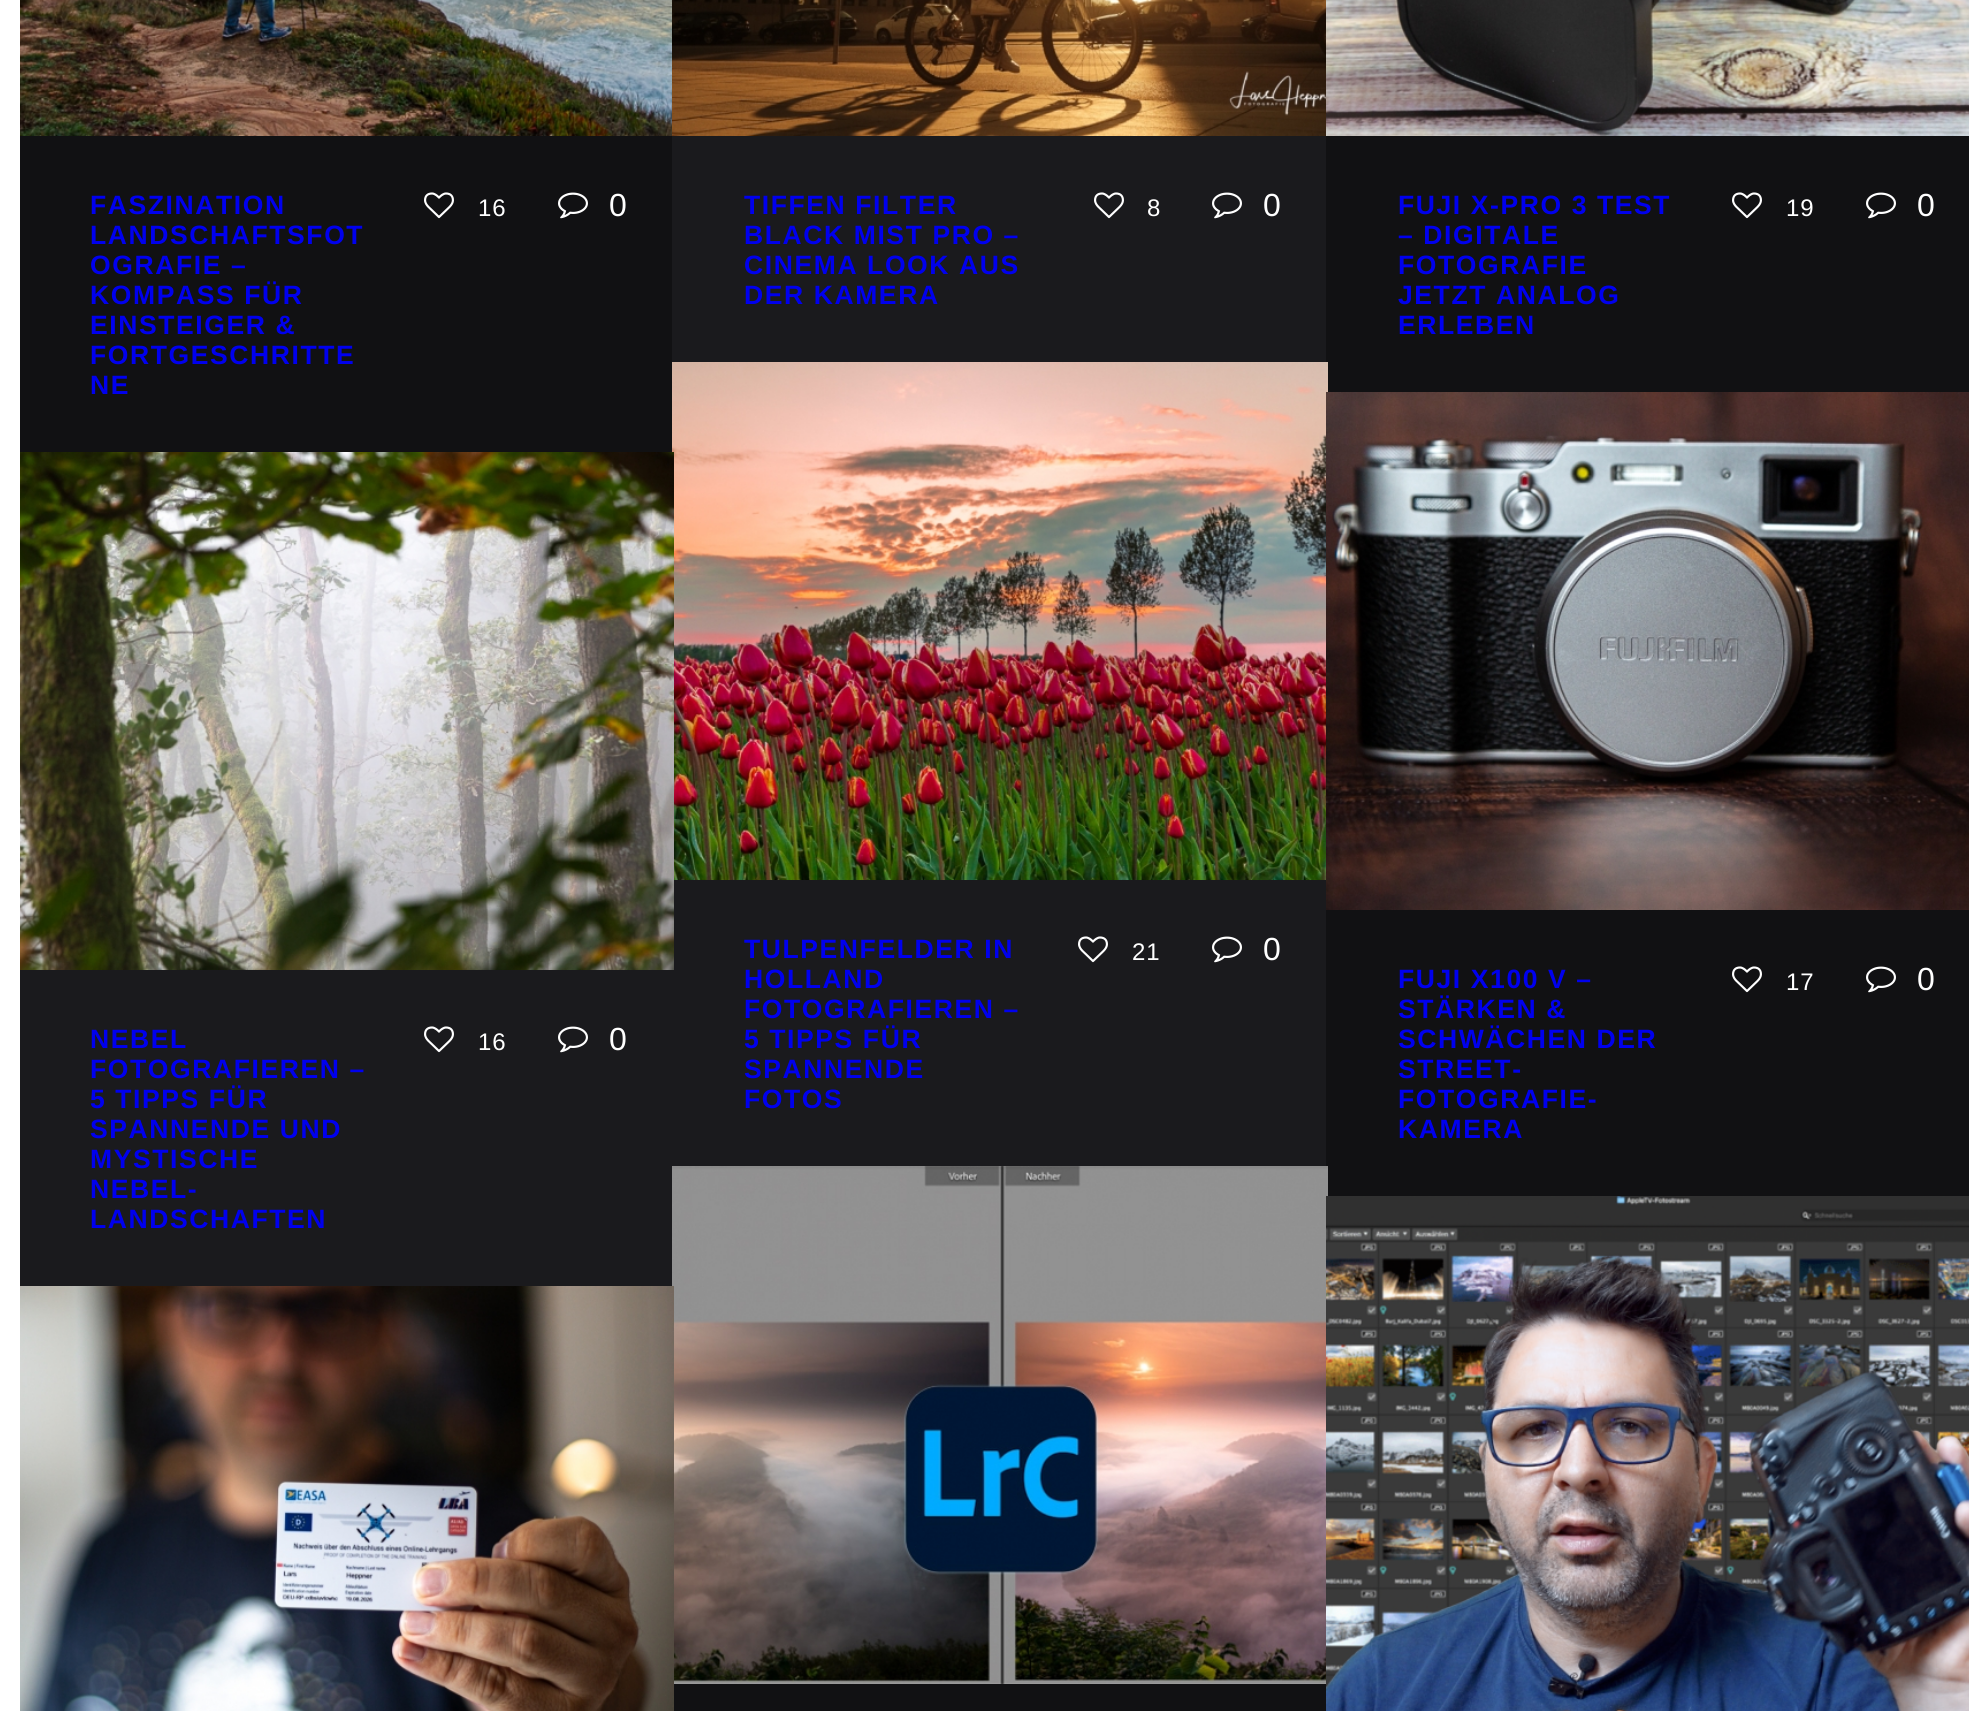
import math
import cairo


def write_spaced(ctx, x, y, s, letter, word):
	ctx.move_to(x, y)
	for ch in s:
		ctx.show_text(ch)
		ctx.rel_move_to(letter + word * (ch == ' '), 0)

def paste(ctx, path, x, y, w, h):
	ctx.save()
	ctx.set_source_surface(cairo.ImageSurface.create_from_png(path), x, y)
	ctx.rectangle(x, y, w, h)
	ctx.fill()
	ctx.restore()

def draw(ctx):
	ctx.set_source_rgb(1, 1, 1)
	ctx.paint()
	ctx.set_source_rgb(0.067, 0.067, 0.075)
	ctx.rectangle(20, 136, 652, 316)
	ctx.fill()
	paste(ctx, 'media/1.png', 20, 0, 652, 136)
	ctx.select_font_face('Liberation Sans', cairo.FONT_SLANT_NORMAL, cairo.FONT_WEIGHT_BOLD)
	ctx.set_font_size(26.5)
	ctx.set_source_rgb(0, 0, 0.933)
	for x, y, s in [
		(90, 214, 'FASZINATION'),
		(90, 244, 'LANDSCHAFTSFOT'),
		(90, 274, 'OGRAFIE –'),
		(90, 304, 'KOMPASS FÜR'),
		(90, 334, 'EINSTEIGER &'),
		(90, 364, 'FORTGESCHRITTE'),
		(90, 394, 'NE'),
	]:
		write_spaced(ctx, x, y, s, 1.6, 0)
	paste(ctx, 'media/2.png', 424, 192, 30, 27)
	ctx.select_font_face('Liberation Sans')
	ctx.set_font_size(24)
	ctx.set_source_rgb(1, 1, 1)
	write_spaced(ctx, 478, 216, '16', 1, 0)
	paste(ctx, 'media/3.png', 558, 192, 30, 27)
	ctx.set_font_size(32)
	write_spaced(ctx, 609, 216, '0', 1, 0)
	ctx.set_source_rgb(0.102, 0.102, 0.114)
	ctx.rectangle(672, 136, 654, 226)
	ctx.fill()
	paste(ctx, 'media/4.png', 672, 0, 654, 136)
	ctx.select_font_face('Liberation Sans', cairo.FONT_SLANT_NORMAL, cairo.FONT_WEIGHT_BOLD)
	ctx.set_font_size(26.5)
	ctx.set_source_rgb(0, 0, 0.933)
	for x, y, s in [
		(744, 214, 'TIFFEN FILTER'),
		(744, 244, 'BLACK MIST PRO –'),
		(744, 274, 'CINEMA LOOK AUS'),
		(744, 304, 'DER KAMERA'),
	]:
		write_spaced(ctx, x, y, s, 1.6, 0)
	paste(ctx, 'media/5.png', 1094, 192, 30, 27)
	ctx.select_font_face('Liberation Sans')
	ctx.set_font_size(24)
	ctx.set_source_rgb(1, 1, 1)
	write_spaced(ctx, 1147, 216, '8', 1, 0)
	paste(ctx, 'media/6.png', 1212, 192, 30, 27)
	ctx.set_font_size(32)
	write_spaced(ctx, 1263, 216, '0', 1, 0)
	ctx.set_source_rgb(0.067, 0.067, 0.075)
	ctx.rectangle(1326, 136, 643, 256)
	ctx.fill()
	paste(ctx, 'media/7.png', 1326, 0, 643, 136)
	ctx.select_font_face('Liberation Sans', cairo.FONT_SLANT_NORMAL, cairo.FONT_WEIGHT_BOLD)
	ctx.set_font_size(26.5)
	ctx.set_source_rgb(0, 0, 0.933)
	for x, y, s in [
		(1398, 214, 'FUJI X-PRO 3 TEST'),
		(1398, 244, '– DIGITALE'),
		(1398, 274, 'FOTOGRAFIE'),
		(1398, 304, 'JETZT ANALOG'),
		(1398, 334, 'ERLEBEN'),
	]:
		write_spaced(ctx, x, y, s, 1.6, 0)
	paste(ctx, 'media/2.png', 1732, 192, 30, 27)
	ctx.select_font_face('Liberation Sans')
	ctx.set_font_size(24)
	ctx.set_source_rgb(1, 1, 1)
	write_spaced(ctx, 1786, 216, '19', 1, 0)
	paste(ctx, 'media/3.png', 1866, 192, 30, 27)
	ctx.set_font_size(32)
	write_spaced(ctx, 1917, 216, '0', 1, 0)
	ctx.set_source_rgb(0.102, 0.102, 0.114)
	ctx.rectangle(20, 970, 654, 316)
	ctx.fill()
	paste(ctx, 'media/9.png', 672, 362, 656, 518)
	paste(ctx, 'media/8.png', 20, 452, 654, 518)
	ctx.select_font_face('Liberation Sans', cairo.FONT_SLANT_NORMAL, cairo.FONT_WEIGHT_BOLD)
	ctx.set_font_size(26.5)
	ctx.set_source_rgb(0, 0, 0.933)
	for x, y, s in [
		(90, 1048, 'NEBEL'),
		(90, 1078, 'FOTOGRAFIEREN –'),
		(90, 1108, '5 TIPPS FÜR'),
		(90, 1138, 'SPANNENDE UND'),
		(90, 1168, 'MYSTISCHE'),
		(90, 1198, 'NEBEL-'),
		(90, 1228, 'LANDSCHAFTEN'),
	]:
		write_spaced(ctx, x, y, s, 1.6, 0)
	paste(ctx, 'media/5.png', 424, 1026, 30, 27)
	ctx.select_font_face('Liberation Sans')
	ctx.set_font_size(24)
	ctx.set_source_rgb(1, 1, 1)
	write_spaced(ctx, 478, 1050, '16', 1, 0)
	paste(ctx, 'media/6.png', 558, 1026, 30, 27)
	ctx.set_font_size(32)
	write_spaced(ctx, 609, 1050, '0', 1, 0)
	ctx.set_source_rgb(0.102, 0.102, 0.114)
	ctx.rectangle(674, 880, 652, 286)
	ctx.fill()
	ctx.select_font_face('Liberation Sans', cairo.FONT_SLANT_NORMAL, cairo.FONT_WEIGHT_BOLD)
	ctx.set_font_size(26.5)
	ctx.set_source_rgb(0, 0, 0.933)
	for x, y, s in [
		(744, 958, 'TULPENFELDER IN'),
		(744, 988, 'HOLLAND'),
		(744, 1018, 'FOTOGRAFIEREN –'),
		(744, 1048, '5 TIPPS FÜR'),
		(744, 1078, 'SPANNENDE'),
		(744, 1108, 'FOTOS'),
	]:
		write_spaced(ctx, x, y, s, 1.6, 0)
	paste(ctx, 'media/5.png', 1078, 936, 30, 27)
	ctx.select_font_face('Liberation Sans')
	ctx.set_font_size(24)
	ctx.set_source_rgb(1, 1, 1)
	write_spaced(ctx, 1132, 960, '21', 1, 0)
	paste(ctx, 'media/6.png', 1212, 936, 30, 27)
	ctx.set_font_size(32)
	write_spaced(ctx, 1263, 960, '0', 1, 0)
	ctx.set_source_rgb(0.067, 0.067, 0.075)
	ctx.rectangle(1326, 910, 643, 286)
	ctx.fill()
	paste(ctx, 'media/10.png', 1326, 392, 643, 518)
	ctx.select_font_face('Liberation Sans', cairo.FONT_SLANT_NORMAL, cairo.FONT_WEIGHT_BOLD)
	ctx.set_font_size(26.5)
	ctx.set_source_rgb(0, 0, 0.933)
	for x, y, s in [
		(1398, 988, 'FUJI X100 V –'),
		(1398, 1018, 'STÄRKEN &'),
		(1398, 1048, 'SCHWÄCHEN DER'),
		(1398, 1078, 'STREET-'),
		(1398, 1108, 'FOTOGRAFIE-'),
		(1398, 1138, 'KAMERA'),
	]:
		write_spaced(ctx, x, y, s, 1.6, 0)
	paste(ctx, 'media/2.png', 1732, 966, 30, 27)
	ctx.select_font_face('Liberation Sans')
	ctx.set_font_size(24)
	ctx.set_source_rgb(1, 1, 1)
	write_spaced(ctx, 1786, 990, '17', 1, 0)
	paste(ctx, 'media/3.png', 1866, 966, 30, 27)
	ctx.set_font_size(32)
	write_spaced(ctx, 1917, 990, '0', 1, 0)
	paste(ctx, 'media/12.png', 672, 1166, 656, 518)
	paste(ctx, 'media/11.png', 20, 1286, 654, 425)
	ctx.set_source_rgb(0.067, 0.067, 0.075)
	ctx.rectangle(674, 1684, 652, 27)
	ctx.fill()
	paste(ctx, 'media/13.png', 1326, 1196, 643, 515)


surface = cairo.ImageSurface(cairo.FORMAT_RGB24, 1969, 1711)
ctx = cairo.Context(surface)
options = cairo.FontOptions()
options.set_hint_metrics(cairo.HINT_METRICS_OFF)
options.set_hint_style(cairo.HINT_STYLE_NONE)
ctx.set_font_options(options)
ctx.set_miter_limit(4)
draw(ctx)
surface.write_to_png('image.png')
